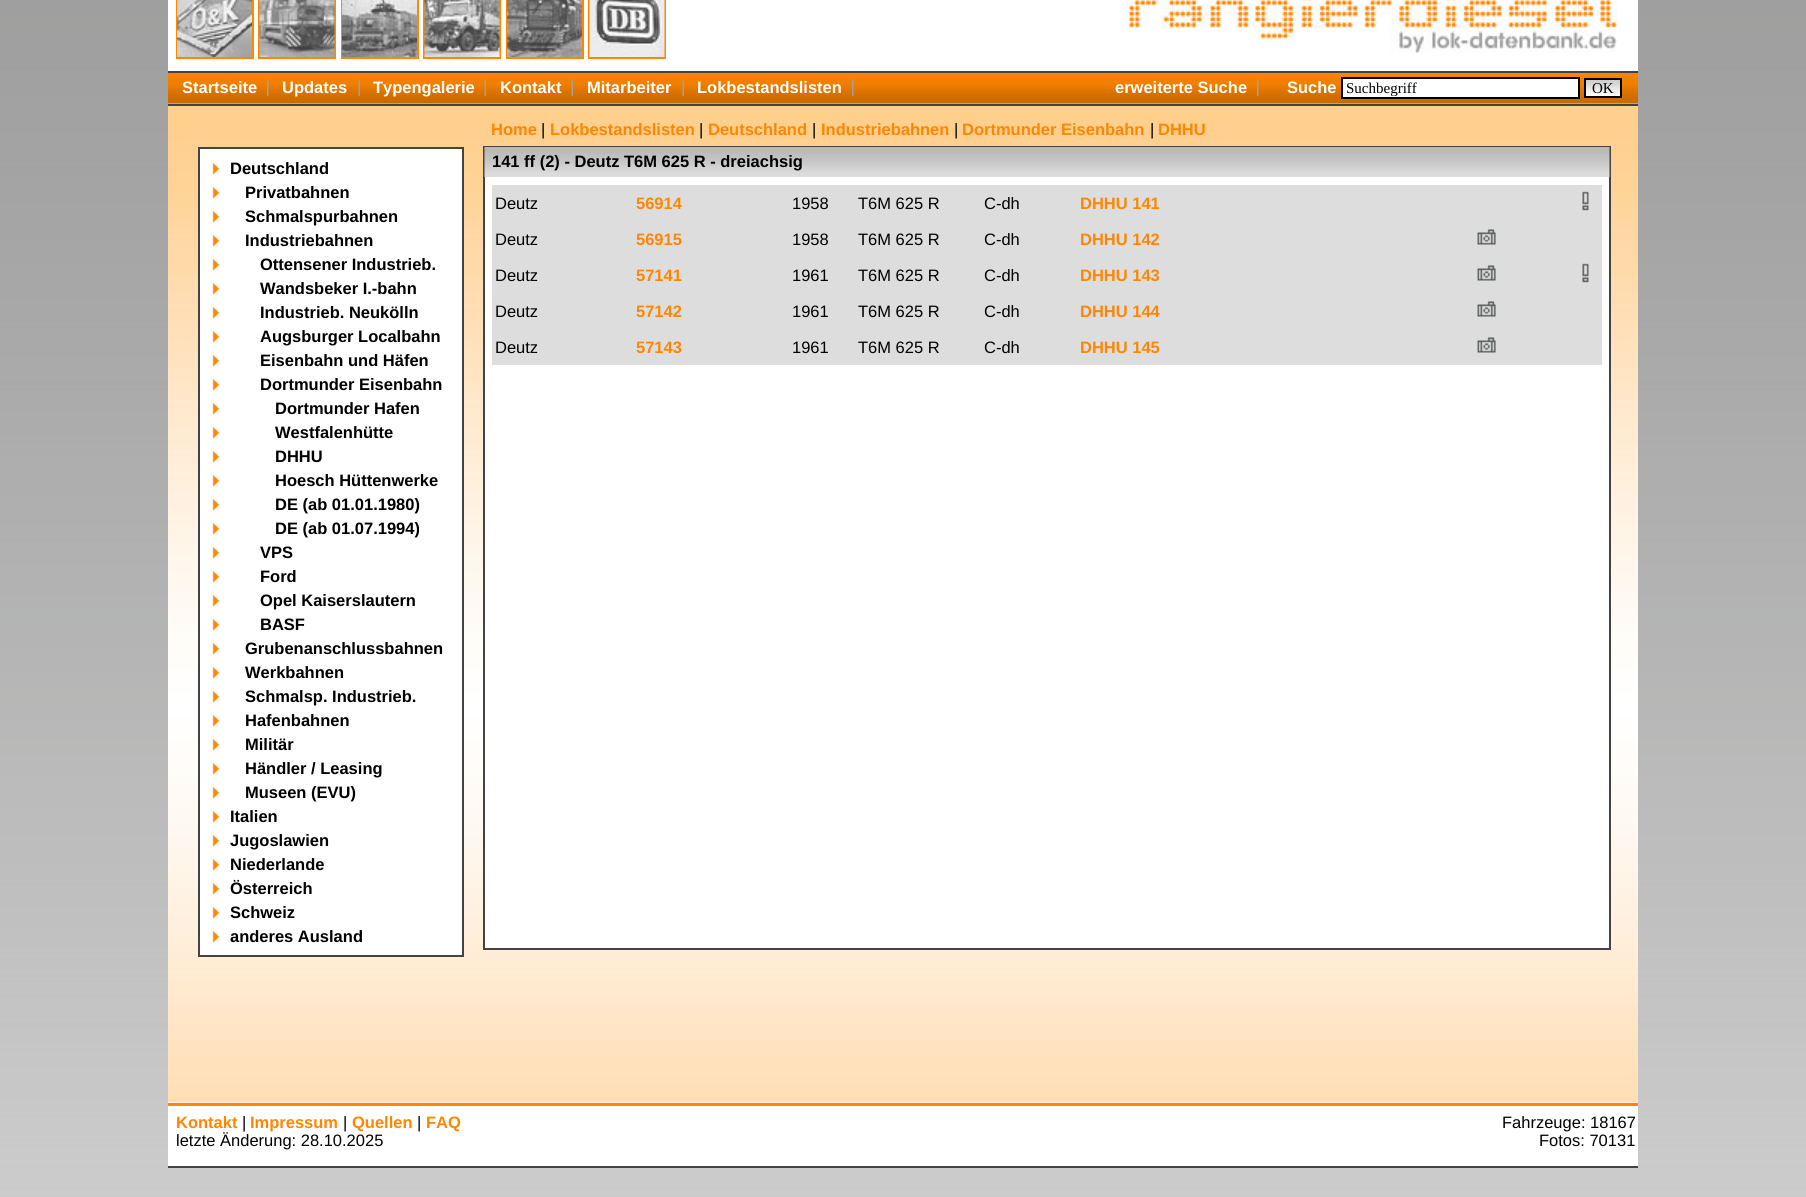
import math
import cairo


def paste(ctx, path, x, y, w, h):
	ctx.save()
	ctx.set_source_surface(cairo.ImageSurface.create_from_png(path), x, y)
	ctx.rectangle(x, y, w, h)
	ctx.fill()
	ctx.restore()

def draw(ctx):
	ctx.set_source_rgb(1, 1, 1)
	ctx.paint()
	paste(ctx, 'media/1.png', 0, 0, 1806, 1197)
	ctx.set_source_rgb(1, 1, 1)
	ctx.rectangle(168, 0, 1470, 71)
	ctx.fill()
	ctx.rectangle(177, -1, 76, 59)
	ctx.set_source_rgb(1, 0.525, 0)
	ctx.stroke()
	ctx.rectangle(259, -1, 76, 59)
	ctx.stroke()
	ctx.rectangle(342, -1, 76, 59)
	ctx.stroke()
	ctx.rectangle(424, -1, 76, 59)
	ctx.stroke()
	ctx.rectangle(507, -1, 76, 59)
	ctx.stroke()
	ctx.rectangle(589, -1, 76, 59)
	ctx.stroke()
	paste(ctx, 'media/2.png', 177, 0, 75, 57)
	paste(ctx, 'media/3.png', 259, 0, 76, 57)
	paste(ctx, 'media/4.png', 342, 0, 75, 57)
	paste(ctx, 'media/5.png', 424, 0, 76, 57)
	paste(ctx, 'media/6.png', 507, 0, 75, 57)
	paste(ctx, 'media/7.png', 589, 0, 76, 57)
	paste(ctx, 'media/8.png', 1125, 0, 493, 53)
	paste(ctx, 'media/9.png', 168, 73, 1470, 31)
	ctx.set_source_rgb(0.263, 0.263, 0.263)
	ctx.rectangle(168, 71, 1470, 2)
	ctx.fill()
	ctx.select_font_face('Liberation Sans', cairo.FONT_SLANT_NORMAL, cairo.FONT_WEIGHT_BOLD)
	ctx.set_font_size(16.5)
	ctx.set_source_rgb(1, 1, 1)
	ctx.move_to(182, 93)
	ctx.show_text('Startseite')
	paste(ctx, 'media/10.png', 267, 79, 2, 17)
	ctx.move_to(282, 93)
	ctx.show_text('Updates')
	paste(ctx, 'media/11.png', 358, 79, 2, 17)
	ctx.move_to(373, 93)
	ctx.show_text('Typengalerie')
	paste(ctx, 'media/11.png', 484, 79, 2, 17)
	ctx.move_to(500, 93)
	ctx.show_text('Kontakt')
	paste(ctx, 'media/11.png', 571, 79, 2, 17)
	ctx.move_to(587, 93)
	ctx.show_text('Mitarbeiter')
	paste(ctx, 'media/11.png', 682, 79, 2, 17)
	ctx.move_to(697, 93)
	ctx.show_text('Lokbestandslisten')
	paste(ctx, 'media/10.png', 852, 79, 2, 17)
	ctx.move_to(1115, 93)
	ctx.show_text('erweiterte Suche')
	paste(ctx, 'media/10.png', 1257, 79, 2, 17)
	ctx.move_to(1287, 93)
	ctx.show_text('Suche')
	ctx.rectangle(1342, 78, 237, 20)
	ctx.fill_preserve()
	ctx.set_source_rgb(0, 0, 0)
	ctx.stroke()
	ctx.save()
	ctx.rectangle(1346, 80, 229, 16)
	ctx.clip()
	ctx.select_font_face('Liberation Serif')
	ctx.set_font_size(15)
	ctx.move_to(1346, 93)
	ctx.show_text('Suchbegriff')
	ctx.restore()
	paste(ctx, 'media/12.png', 1586, 80, 34, 16)
	ctx.rectangle(1585, 79, 36, 18)
	ctx.stroke()
	ctx.select_font_face('Liberation Serif')
	ctx.set_font_size(15)
	ctx.move_to(1592, 93)
	ctx.show_text('OK')
	ctx.set_source_rgb(1, 1, 1)
	ctx.rectangle(168, 1102, 1470, 1)
	ctx.fill()
	paste(ctx, 'media/13.png', 168, 103, 1470, 1000)
	ctx.set_source_rgb(0.263, 0.263, 0.263)
	ctx.rectangle(168, 104, 1470, 2)
	ctx.fill()
	ctx.select_font_face('Liberation Sans', cairo.FONT_SLANT_NORMAL, cairo.FONT_WEIGHT_BOLD)
	ctx.set_font_size(16.5)
	ctx.set_source_rgb(1, 0.525, 0)
	ctx.move_to(491, 135)
	ctx.show_text('Home')
	ctx.select_font_face('Liberation Sans')
	ctx.set_source_rgb(0, 0, 0)
	ctx.move_to(541, 135)
	ctx.show_text('|')
	ctx.select_font_face('Liberation Sans', cairo.FONT_SLANT_NORMAL, cairo.FONT_WEIGHT_BOLD)
	ctx.set_source_rgb(1, 0.525, 0)
	ctx.move_to(550, 135)
	ctx.show_text('Lokbestandslisten')
	ctx.select_font_face('Liberation Sans')
	ctx.set_source_rgb(0, 0, 0)
	ctx.move_to(699, 135)
	ctx.show_text('|')
	ctx.select_font_face('Liberation Sans', cairo.FONT_SLANT_NORMAL, cairo.FONT_WEIGHT_BOLD)
	ctx.set_source_rgb(1, 0.525, 0)
	ctx.move_to(708, 135)
	ctx.show_text('Deutschland')
	ctx.select_font_face('Liberation Sans')
	ctx.set_source_rgb(0, 0, 0)
	ctx.move_to(812, 135)
	ctx.show_text('|')
	ctx.select_font_face('Liberation Sans', cairo.FONT_SLANT_NORMAL, cairo.FONT_WEIGHT_BOLD)
	ctx.set_source_rgb(1, 0.525, 0)
	ctx.move_to(821, 135)
	ctx.show_text('Industriebahnen')
	ctx.select_font_face('Liberation Sans')
	ctx.set_source_rgb(0, 0, 0)
	ctx.move_to(954, 135)
	ctx.show_text('|')
	ctx.select_font_face('Liberation Sans', cairo.FONT_SLANT_NORMAL, cairo.FONT_WEIGHT_BOLD)
	ctx.set_source_rgb(1, 0.525, 0)
	ctx.move_to(962, 135)
	ctx.show_text('Dortmunder Eisenbahn')
	ctx.select_font_face('Liberation Sans')
	ctx.set_source_rgb(0, 0, 0)
	ctx.move_to(1150, 135)
	ctx.show_text('|')
	ctx.select_font_face('Liberation Sans', cairo.FONT_SLANT_NORMAL, cairo.FONT_WEIGHT_BOLD)
	ctx.set_source_rgb(1, 0.525, 0)
	ctx.move_to(1158, 135)
	ctx.show_text('DHHU')
	ctx.set_source_rgb(1, 1, 1)
	ctx.rectangle(199, 148, 264, 808)
	ctx.fill_preserve()
	ctx.set_source_rgb(0.263, 0.263, 0.263)
	ctx.stroke()
	paste(ctx, 'media/14.png', 212, 163, 8, 12)
	ctx.set_source_rgb(0, 0, 0)
	ctx.move_to(230, 174)
	ctx.show_text('Deutschland')
	paste(ctx, 'media/14.png', 212, 187, 8, 12)
	ctx.move_to(245, 198)
	ctx.show_text('Privatbahnen')
	paste(ctx, 'media/14.png', 212, 211, 8, 12)
	ctx.move_to(245, 222)
	ctx.show_text('Schmalspurbahnen')
	paste(ctx, 'media/14.png', 212, 235, 8, 12)
	ctx.move_to(245, 246)
	ctx.show_text('Industriebahnen')
	paste(ctx, 'media/14.png', 212, 259, 8, 12)
	ctx.move_to(260, 270)
	ctx.show_text('Ottensener Industrieb.')
	paste(ctx, 'media/14.png', 212, 283, 8, 12)
	ctx.move_to(260, 294)
	ctx.show_text('Wandsbeker I.-bahn')
	paste(ctx, 'media/14.png', 212, 307, 8, 12)
	ctx.move_to(260, 318)
	ctx.show_text('Industrieb. Neukölln')
	paste(ctx, 'media/14.png', 212, 331, 8, 12)
	ctx.move_to(260, 342)
	ctx.show_text('Augsburger Localbahn')
	paste(ctx, 'media/14.png', 212, 355, 8, 12)
	ctx.move_to(260, 366)
	ctx.show_text('Eisenbahn und Häfen')
	paste(ctx, 'media/14.png', 212, 379, 8, 12)
	ctx.move_to(260, 390)
	ctx.show_text('Dortmunder Eisenbahn')
	paste(ctx, 'media/14.png', 212, 403, 8, 12)
	ctx.move_to(275, 414)
	ctx.show_text('Dortmunder Hafen')
	paste(ctx, 'media/14.png', 212, 427, 8, 12)
	ctx.move_to(275, 438)
	ctx.show_text('Westfalenhütte')
	paste(ctx, 'media/14.png', 212, 451, 8, 12)
	ctx.move_to(275, 462)
	ctx.show_text('DHHU')
	paste(ctx, 'media/14.png', 212, 475, 8, 12)
	ctx.move_to(275, 486)
	ctx.show_text('Hoesch Hüttenwerke')
	paste(ctx, 'media/14.png', 212, 499, 8, 12)
	ctx.move_to(275, 510)
	ctx.show_text('DE (ab 01.01.1980)')
	paste(ctx, 'media/14.png', 212, 523, 8, 12)
	ctx.move_to(275, 534)
	ctx.show_text('DE (ab 01.07.1994)')
	paste(ctx, 'media/14.png', 212, 547, 8, 12)
	ctx.move_to(260, 558)
	ctx.show_text('VPS')
	paste(ctx, 'media/14.png', 212, 571, 8, 12)
	ctx.move_to(260, 582)
	ctx.show_text('Ford')
	paste(ctx, 'media/14.png', 212, 595, 8, 12)
	ctx.move_to(260, 606)
	ctx.show_text('Opel Kaiserslautern')
	paste(ctx, 'media/14.png', 212, 619, 8, 12)
	ctx.move_to(260, 630)
	ctx.show_text('BASF')
	paste(ctx, 'media/14.png', 212, 643, 8, 12)
	ctx.move_to(245, 654)
	ctx.show_text('Grubenanschlussbahnen')
	paste(ctx, 'media/14.png', 212, 667, 8, 12)
	ctx.move_to(245, 678)
	ctx.show_text('Werkbahnen')
	paste(ctx, 'media/14.png', 212, 691, 8, 12)
	ctx.move_to(245, 702)
	ctx.show_text('Schmalsp. Industrieb.')
	paste(ctx, 'media/14.png', 212, 715, 8, 12)
	ctx.move_to(245, 726)
	ctx.show_text('Hafenbahnen')
	paste(ctx, 'media/14.png', 212, 739, 8, 12)
	ctx.move_to(245, 750)
	ctx.show_text('Militär')
	paste(ctx, 'media/14.png', 212, 763, 8, 12)
	ctx.move_to(245, 774)
	ctx.show_text('Händler / Leasing')
	paste(ctx, 'media/14.png', 212, 787, 8, 12)
	ctx.move_to(245, 798)
	ctx.show_text('Museen (EVU)')
	paste(ctx, 'media/14.png', 212, 811, 8, 12)
	ctx.move_to(230, 822)
	ctx.show_text('Italien')
	paste(ctx, 'media/14.png', 212, 835, 8, 12)
	ctx.move_to(230, 846)
	ctx.show_text('Jugoslawien')
	paste(ctx, 'media/14.png', 212, 859, 8, 12)
	ctx.move_to(230, 870)
	ctx.show_text('Niederlande')
	paste(ctx, 'media/14.png', 212, 883, 8, 12)
	ctx.move_to(230, 894)
	ctx.show_text('Österreich')
	paste(ctx, 'media/14.png', 212, 907, 8, 12)
	ctx.move_to(230, 918)
	ctx.show_text('Schweiz')
	paste(ctx, 'media/14.png', 212, 931, 8, 12)
	ctx.move_to(230, 942)
	ctx.show_text('anderes Ausland')
	ctx.set_source_rgb(1, 1, 1)
	ctx.rectangle(485, 177, 1124, 771)
	ctx.fill()
	ctx.rectangle(484, 147, 1126, 802)
	ctx.set_source_rgb(0.263, 0.263, 0.263)
	ctx.stroke()
	paste(ctx, 'media/15.png', 484, 147, 1126, 30)
	ctx.set_source_rgb(0, 0, 0)
	ctx.move_to(492, 167)
	ctx.show_text('141 ff (2) - Deutz T6M 625 R - dreiachsig')
	ctx.set_source_rgb(0.867, 0.867, 0.867)
	ctx.rectangle(492, 185, 1110, 36)
	ctx.fill()
	ctx.select_font_face('Liberation Sans')
	ctx.set_source_rgb(0, 0, 0)
	ctx.move_to(495, 209)
	ctx.show_text('Deutz')
	ctx.select_font_face('Liberation Sans', cairo.FONT_SLANT_NORMAL, cairo.FONT_WEIGHT_BOLD)
	ctx.set_source_rgb(1, 0.525, 0)
	ctx.move_to(636, 209)
	ctx.show_text('56914')
	ctx.select_font_face('Liberation Sans')
	ctx.set_source_rgb(0, 0, 0)
	for x, y, s in [
		(792, 209, '1958'),
		(858, 209, 'T6M 625 R'),
		(984, 209, 'C-dh'),
	]:
		ctx.move_to(x, y)
		ctx.show_text(s)
	ctx.select_font_face('Liberation Sans', cairo.FONT_SLANT_NORMAL, cairo.FONT_WEIGHT_BOLD)
	ctx.set_source_rgb(1, 0.525, 0)
	ctx.move_to(1080, 209)
	ctx.show_text('DHHU 141')
	paste(ctx, 'media/16.png', 1582, 191, 7, 20)
	ctx.set_source_rgb(0.867, 0.867, 0.867)
	ctx.rectangle(492, 221, 1110, 36)
	ctx.fill()
	ctx.select_font_face('Liberation Sans')
	ctx.set_source_rgb(0, 0, 0)
	ctx.move_to(495, 245)
	ctx.show_text('Deutz')
	ctx.select_font_face('Liberation Sans', cairo.FONT_SLANT_NORMAL, cairo.FONT_WEIGHT_BOLD)
	ctx.set_source_rgb(1, 0.525, 0)
	ctx.move_to(636, 245)
	ctx.show_text('56915')
	ctx.select_font_face('Liberation Sans')
	ctx.set_source_rgb(0, 0, 0)
	for x, y, s in [
		(792, 245, '1958'),
		(858, 245, 'T6M 625 R'),
		(984, 245, 'C-dh'),
	]:
		ctx.move_to(x, y)
		ctx.show_text(s)
	ctx.select_font_face('Liberation Sans', cairo.FONT_SLANT_NORMAL, cairo.FONT_WEIGHT_BOLD)
	ctx.set_source_rgb(1, 0.525, 0)
	ctx.move_to(1080, 245)
	ctx.show_text('DHHU 142')
	paste(ctx, 'media/17.png', 1477, 229, 19, 16)
	ctx.set_source_rgb(0.867, 0.867, 0.867)
	ctx.rectangle(492, 257, 1110, 36)
	ctx.fill()
	ctx.select_font_face('Liberation Sans')
	ctx.set_source_rgb(0, 0, 0)
	ctx.move_to(495, 281)
	ctx.show_text('Deutz')
	ctx.select_font_face('Liberation Sans', cairo.FONT_SLANT_NORMAL, cairo.FONT_WEIGHT_BOLD)
	ctx.set_source_rgb(1, 0.525, 0)
	ctx.move_to(636, 281)
	ctx.show_text('57141')
	ctx.select_font_face('Liberation Sans')
	ctx.set_source_rgb(0, 0, 0)
	for x, y, s in [
		(792, 281, '1961'),
		(858, 281, 'T6M 625 R'),
		(984, 281, 'C-dh'),
	]:
		ctx.move_to(x, y)
		ctx.show_text(s)
	ctx.select_font_face('Liberation Sans', cairo.FONT_SLANT_NORMAL, cairo.FONT_WEIGHT_BOLD)
	ctx.set_source_rgb(1, 0.525, 0)
	ctx.move_to(1080, 281)
	ctx.show_text('DHHU 143')
	paste(ctx, 'media/17.png', 1477, 265, 19, 16)
	paste(ctx, 'media/16.png', 1582, 263, 7, 20)
	ctx.set_source_rgb(0.867, 0.867, 0.867)
	ctx.rectangle(492, 293, 1110, 36)
	ctx.fill()
	ctx.select_font_face('Liberation Sans')
	ctx.set_source_rgb(0, 0, 0)
	ctx.move_to(495, 317)
	ctx.show_text('Deutz')
	ctx.select_font_face('Liberation Sans', cairo.FONT_SLANT_NORMAL, cairo.FONT_WEIGHT_BOLD)
	ctx.set_source_rgb(1, 0.525, 0)
	ctx.move_to(636, 317)
	ctx.show_text('57142')
	ctx.select_font_face('Liberation Sans')
	ctx.set_source_rgb(0, 0, 0)
	for x, y, s in [
		(792, 317, '1961'),
		(858, 317, 'T6M 625 R'),
		(984, 317, 'C-dh'),
	]:
		ctx.move_to(x, y)
		ctx.show_text(s)
	ctx.select_font_face('Liberation Sans', cairo.FONT_SLANT_NORMAL, cairo.FONT_WEIGHT_BOLD)
	ctx.set_source_rgb(1, 0.525, 0)
	ctx.move_to(1080, 317)
	ctx.show_text('DHHU 144')
	paste(ctx, 'media/17.png', 1477, 301, 19, 16)
	ctx.set_source_rgb(0.867, 0.867, 0.867)
	ctx.rectangle(492, 329, 1110, 36)
	ctx.fill()
	ctx.select_font_face('Liberation Sans')
	ctx.set_source_rgb(0, 0, 0)
	ctx.move_to(495, 353)
	ctx.show_text('Deutz')
	ctx.select_font_face('Liberation Sans', cairo.FONT_SLANT_NORMAL, cairo.FONT_WEIGHT_BOLD)
	ctx.set_source_rgb(1, 0.525, 0)
	ctx.move_to(636, 353)
	ctx.show_text('57143')
	ctx.select_font_face('Liberation Sans')
	ctx.set_source_rgb(0, 0, 0)
	for x, y, s in [
		(792, 353, '1961'),
		(858, 353, 'T6M 625 R'),
		(984, 353, 'C-dh'),
	]:
		ctx.move_to(x, y)
		ctx.show_text(s)
	ctx.select_font_face('Liberation Sans', cairo.FONT_SLANT_NORMAL, cairo.FONT_WEIGHT_BOLD)
	ctx.set_source_rgb(1, 0.525, 0)
	ctx.move_to(1080, 353)
	ctx.show_text('DHHU 145')
	paste(ctx, 'media/17.png', 1477, 337, 19, 16)
	ctx.set_source_rgb(1, 1, 1)
	ctx.rectangle(168, 1106, 1470, 60)
	ctx.fill()
	ctx.set_source_rgb(1, 0.525, 0)
	ctx.rectangle(168, 1103, 1470, 3)
	ctx.fill()
	ctx.set_source_rgb(0.263, 0.263, 0.263)
	ctx.rectangle(168, 1166, 1470, 2)
	ctx.fill()
	ctx.set_source_rgb(1, 0.525, 0)
	ctx.move_to(176, 1128)
	ctx.show_text('Kontakt')
	ctx.select_font_face('Liberation Sans')
	ctx.set_source_rgb(0, 0, 0)
	ctx.move_to(242, 1128)
	ctx.show_text('|')
	ctx.select_font_face('Liberation Sans', cairo.FONT_SLANT_NORMAL, cairo.FONT_WEIGHT_BOLD)
	ctx.set_source_rgb(1, 0.525, 0)
	ctx.move_to(250, 1128)
	ctx.show_text('Impressum')
	ctx.select_font_face('Liberation Sans')
	ctx.set_source_rgb(0, 0, 0)
	ctx.move_to(343, 1128)
	ctx.show_text('|')
	ctx.select_font_face('Liberation Sans', cairo.FONT_SLANT_NORMAL, cairo.FONT_WEIGHT_BOLD)
	ctx.set_source_rgb(1, 0.525, 0)
	ctx.move_to(352, 1128)
	ctx.show_text('Quellen')
	ctx.select_font_face('Liberation Sans')
	ctx.set_source_rgb(0, 0, 0)
	ctx.move_to(417, 1128)
	ctx.show_text('|')
	ctx.select_font_face('Liberation Sans', cairo.FONT_SLANT_NORMAL, cairo.FONT_WEIGHT_BOLD)
	ctx.set_source_rgb(1, 0.525, 0)
	ctx.move_to(426, 1128)
	ctx.show_text('FAQ')
	ctx.select_font_face('Liberation Sans')
	ctx.set_source_rgb(0, 0, 0)
	for x, y, s in [
		(176, 1146, 'letzte Änderung: 28.10.2025'),
		(1502, 1128, 'Fahrzeuge: 18167'),
		(1539, 1146, 'Fotos: 70131'),
	]:
		ctx.move_to(x, y)
		ctx.show_text(s)


surface = cairo.ImageSurface(cairo.FORMAT_RGB24, 1806, 1197)
ctx = cairo.Context(surface)
options = cairo.FontOptions()
options.set_hint_metrics(cairo.HINT_METRICS_OFF)
options.set_hint_style(cairo.HINT_STYLE_NONE)
ctx.set_font_options(options)
ctx.set_miter_limit(4)
draw(ctx)
surface.write_to_png('image.png')
